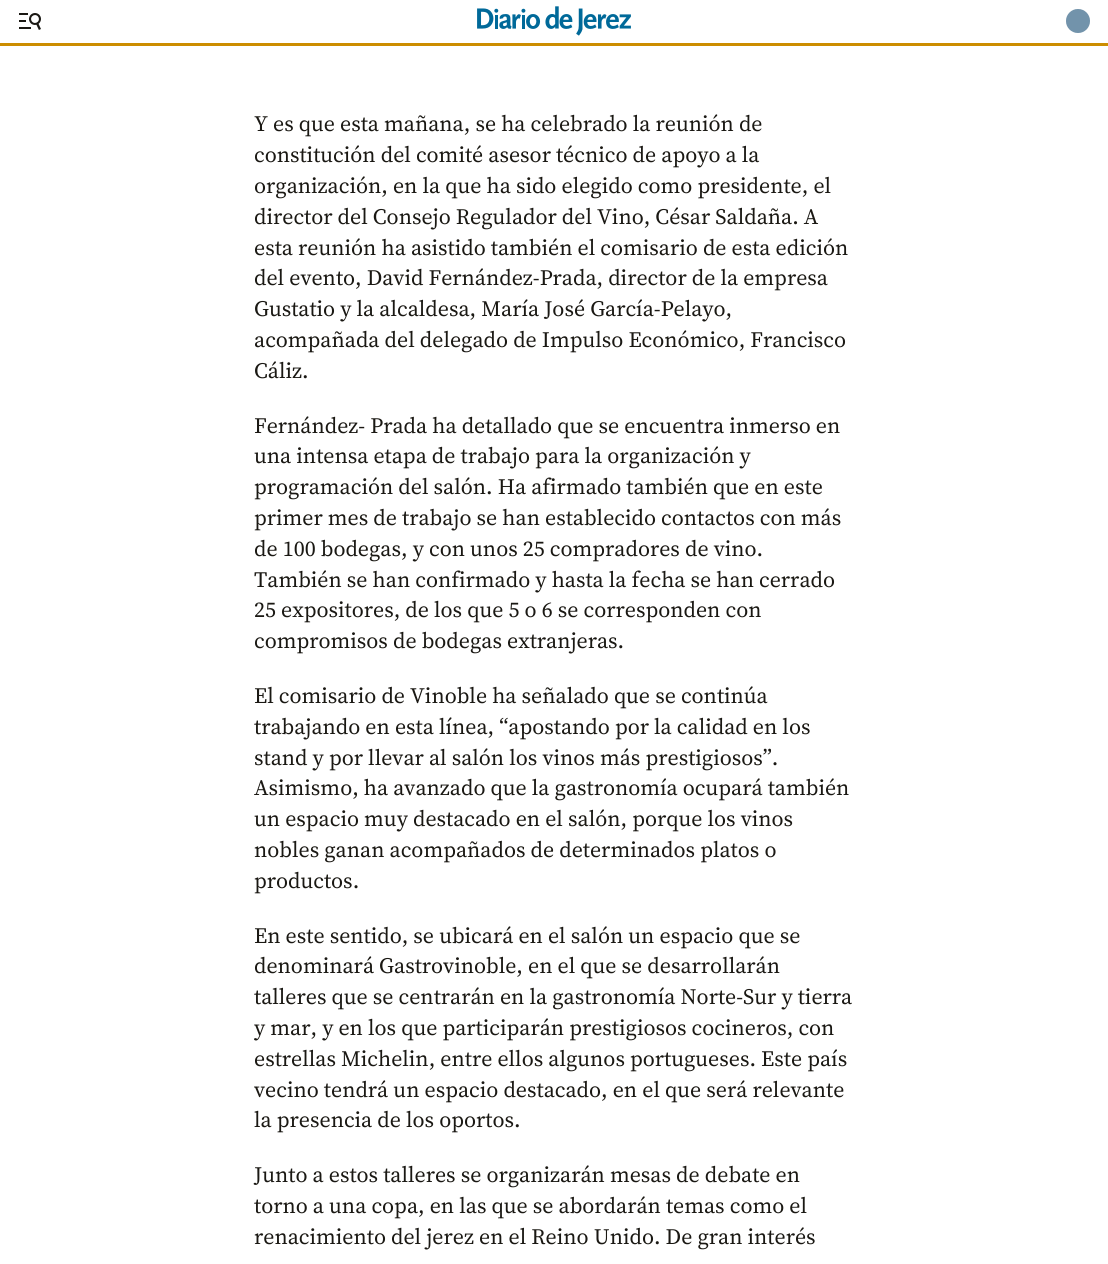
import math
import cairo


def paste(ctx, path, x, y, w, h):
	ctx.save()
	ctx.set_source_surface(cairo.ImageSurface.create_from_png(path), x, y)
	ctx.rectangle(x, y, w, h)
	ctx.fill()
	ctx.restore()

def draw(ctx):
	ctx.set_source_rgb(1, 1, 1)
	ctx.paint()
	paste(ctx, 'media/1.png', 19, 13, 22, 17)
	paste(ctx, 'media/2.png', 477, 6, 154, 30)
	ctx.set_source_rgb(0.655, 0.737, 0.796)
	ctx.arc(1078, 21, 12, 0, 2 * math.pi)
	ctx.fill()
	ctx.set_source_rgba(0.141, 0.341, 0.486, 0.4)
	ctx.arc(1078, 21, 12, 0, 2 * math.pi)
	ctx.fill()
	ctx.set_source_rgb(0.8, 0.553, 0)
	ctx.rectangle(0, 43, 1108, 3)
	ctx.fill()
	ctx.select_font_face('Source Serif 4')
	ctx.set_font_size(22)
	ctx.set_source_rgb(0.102, 0.094, 0.075)
	for x, y, s in [
		(254, 131, 'Y es que esta mañana, se ha celebrado la reunión de'),
		(254, 162, 'constitución del comité asesor técnico de apoyo a la'),
		(254, 193, 'organización, en la que ha sido elegido como presidente, el'),
		(254, 224, 'director del Consejo Regulador del Vino, César Saldaña. A'),
		(254, 255, 'esta reunión ha asistido también el comisario de esta edición'),
		(254, 285, 'del evento, David Fernández-Prada, director de la empresa'),
		(254, 316, 'Gustatio y la alcaldesa, María José García-Pelayo,'),
		(254, 347, 'acompañada del delegado de Impulso Económico, Francisco'),
		(254, 378, 'Cáliz.'),
		(254, 433, 'Fernández- Prada ha detallado que se encuentra inmerso en'),
		(254, 463, 'una intensa etapa de trabajo para la organización y'),
		(254, 494, 'programación del salón. Ha afirmado también que en este'),
		(254, 525, 'primer mes de trabajo se han establecido contactos con más'),
		(254, 556, 'de 100 bodegas, y con unos 25 compradores de vino.'),
		(254, 587, 'También se han confirmado y hasta la fecha se han cerrado'),
		(254, 617, '25 expositores, de los que 5 o 6 se corresponden con'),
		(254, 648, 'compromisos de bodegas extranjeras.'),
		(254, 703, 'El comisario de Vinoble ha señalado que se continúa'),
		(254, 734, 'trabajando en esta línea, “apostando por la calidad en los'),
		(254, 765, 'stand y por llevar al salón los vinos más prestigiosos”.'),
		(254, 795, 'Asimismo, ha avanzado que la gastronomía ocupará también'),
		(254, 826, 'un espacio muy destacado en el salón, porque los vinos'),
		(254, 857, 'nobles ganan acompañados de determinados platos o'),
		(254, 888, 'productos.'),
		(254, 943, 'En este sentido, se ubicará en el salón un espacio que se'),
		(254, 973, 'denominará Gastrovinoble, en el que se desarrollarán'),
		(254, 1004, 'talleres que se centrarán en la gastronomía Norte-Sur y tierra'),
		(254, 1035, 'y mar, y en los que participarán prestigiosos cocineros, con'),
		(254, 1066, 'estrellas Michelin, entre ellos algunos portugueses. Este país'),
		(254, 1097, 'vecino tendrá un espacio destacado, en el que será relevante'),
		(254, 1127, 'la presencia de los oportos.'),
		(254, 1182, 'Junto a estos talleres se organizarán mesas de debate en'),
		(254, 1213, 'torno a una copa, en las que se abordarán temas como el'),
		(254, 1244, 'renacimiento del jerez en el Reino Unido. De gran interés'),
	]:
		ctx.move_to(x, y)
		ctx.show_text(s)


surface = cairo.ImageSurface(cairo.FORMAT_RGB24, 1108, 1264)
ctx = cairo.Context(surface)
options = cairo.FontOptions()
options.set_hint_metrics(cairo.HINT_METRICS_OFF)
options.set_hint_style(cairo.HINT_STYLE_NONE)
ctx.set_font_options(options)
ctx.set_miter_limit(4)
draw(ctx)
surface.write_to_png('image.png')
